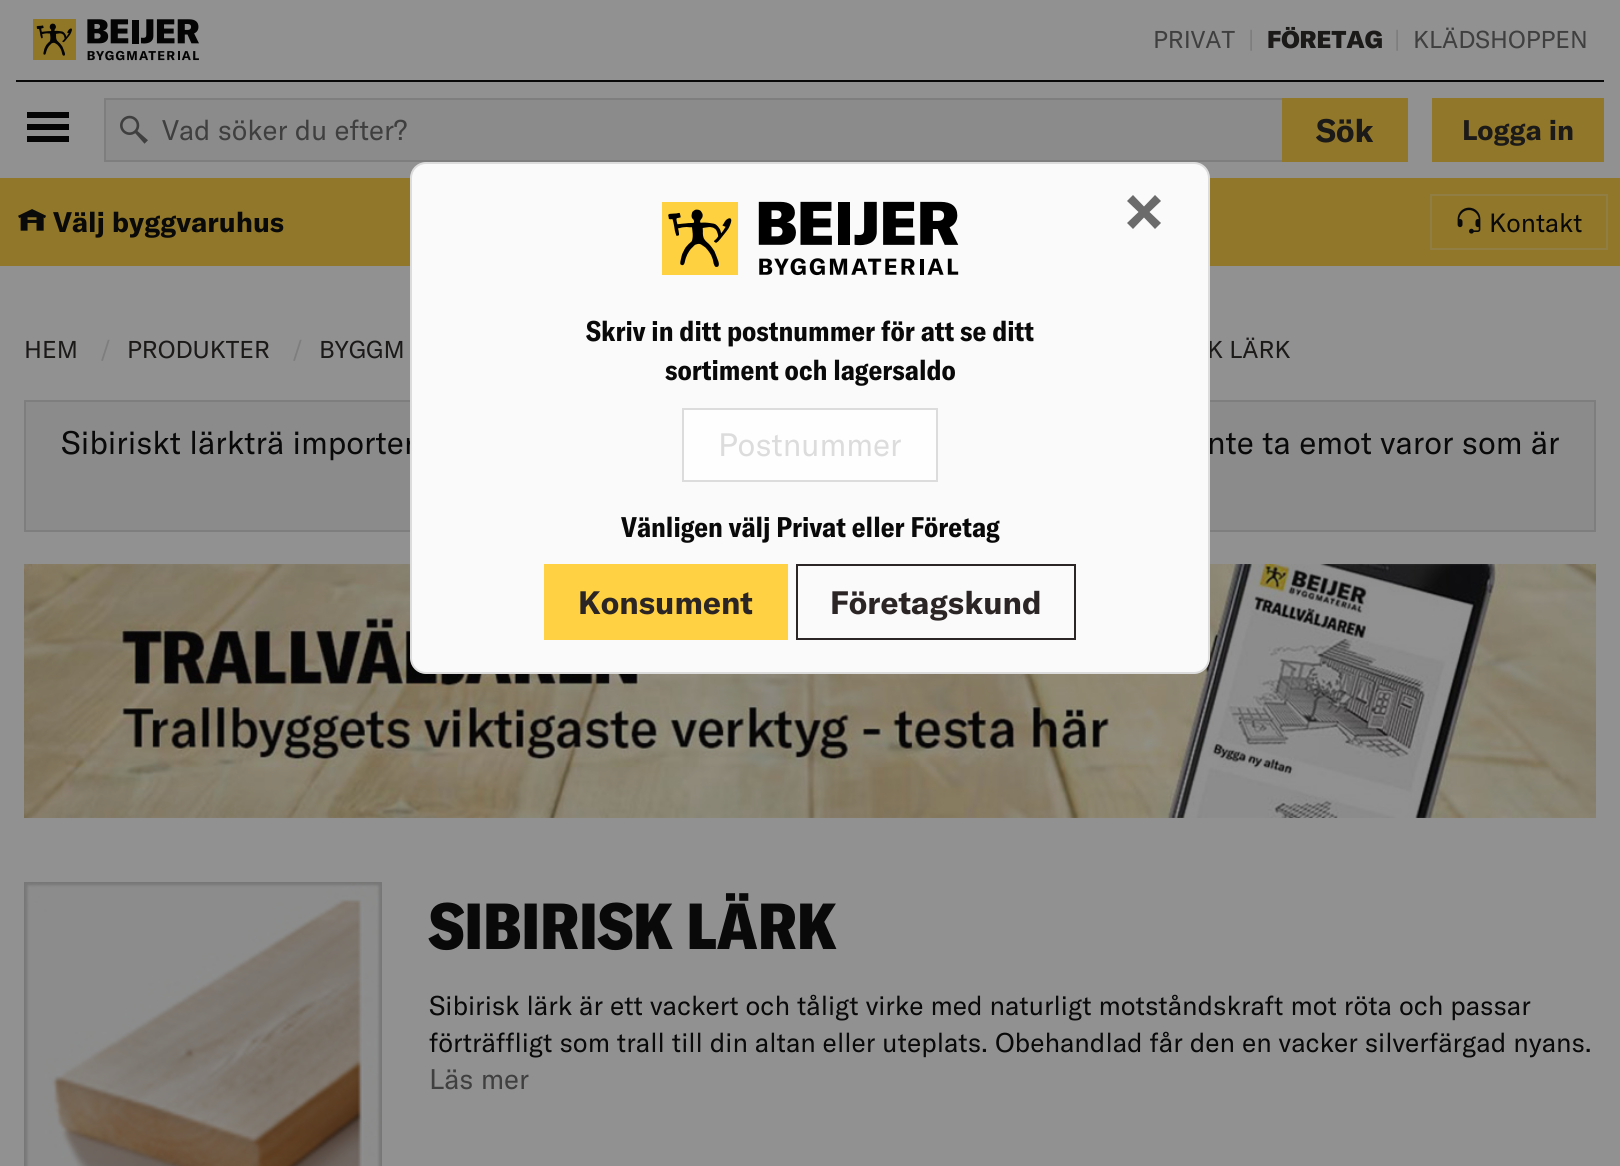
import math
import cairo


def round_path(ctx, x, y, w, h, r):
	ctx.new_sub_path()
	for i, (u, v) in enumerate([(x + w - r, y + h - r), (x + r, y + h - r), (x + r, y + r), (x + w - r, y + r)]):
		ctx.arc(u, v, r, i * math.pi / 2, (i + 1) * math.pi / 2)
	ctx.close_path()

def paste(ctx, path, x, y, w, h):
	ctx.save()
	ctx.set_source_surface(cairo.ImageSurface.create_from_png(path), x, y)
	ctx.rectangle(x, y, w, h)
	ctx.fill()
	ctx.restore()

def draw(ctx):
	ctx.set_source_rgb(0.569, 0.569, 0.569)
	ctx.paint()
	ctx.set_source_rgb(0.039, 0.039, 0.039)
	ctx.rectangle(16, 80, 1588, 2)
	ctx.fill()
	paste(ctx, 'media/1.png', 33, 19, 166, 42)
	ctx.select_font_face('GT America')
	ctx.set_font_size(24)
	ctx.set_source_rgb(0.247, 0.247, 0.247)
	ctx.move_to(1153, 48)
	ctx.show_text('PRIVAT')
	ctx.set_source_rgb(0.494, 0.494, 0.494)
	ctx.move_to(1248, 48)
	ctx.show_text('|')
	ctx.select_font_face('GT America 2 Black')
	ctx.set_source_rgb(0.11, 0.098, 0.098)
	ctx.move_to(1267, 48)
	ctx.show_text('FÖRETAG')
	ctx.select_font_face('GT America')
	ctx.set_source_rgb(0.494, 0.494, 0.494)
	ctx.move_to(1394, 48)
	ctx.show_text('|')
	ctx.set_source_rgb(0.247, 0.247, 0.247)
	ctx.move_to(1413, 48)
	ctx.show_text('KLÄDSHOPPEN')
	ctx.set_source_rgb(0.02, 0.02, 0.02)
	ctx.new_path()
	ctx.move_to(27, 112)
	ctx.line_to(69, 112)
	ctx.line_to(69, 118)
	ctx.line_to(27, 118)
	ctx.close_path()
	ctx.move_to(27, 124)
	ctx.line_to(69, 124)
	ctx.line_to(69, 130)
	ctx.line_to(27, 130)
	ctx.close_path()
	ctx.move_to(27, 136)
	ctx.line_to(69, 136)
	ctx.line_to(69, 142)
	ctx.line_to(27, 142)
	ctx.close_path()
	ctx.fill()
	ctx.set_source_rgb(0.545, 0.545, 0.545)
	ctx.rectangle(106, 100, 1176, 60)
	ctx.fill()
	ctx.rectangle(105, 99, 1302, 62)
	ctx.set_source_rgb(0.494, 0.494, 0.494)
	ctx.stroke()
	paste(ctx, 'media/2.png', 120, 115, 28, 29)
	ctx.set_font_size(28)
	ctx.set_source_rgb(0.247, 0.247, 0.247)
	ctx.move_to(162, 140)
	ctx.show_text('Vad söker du efter?')
	ctx.set_source_rgb(0.569, 0.467, 0.161)
	ctx.rectangle(1282, 98, 126, 64)
	ctx.fill()
	ctx.select_font_face('GT America', cairo.FONT_SLANT_NORMAL, cairo.FONT_WEIGHT_BOLD)
	ctx.set_font_size(32)
	ctx.set_source_rgb(0.11, 0.098, 0.098)
	ctx.move_to(1316, 142)
	ctx.show_text('Sök')
	ctx.set_source_rgb(0.569, 0.467, 0.161)
	ctx.rectangle(1432, 98, 172, 64)
	ctx.fill()
	ctx.set_font_size(28)
	ctx.set_source_rgb(0.11, 0.098, 0.098)
	ctx.move_to(1462, 140)
	ctx.show_text('Logga in')
	ctx.set_source_rgb(0.569, 0.467, 0.161)
	ctx.rectangle(0, 178, 1620, 88)
	ctx.fill()
	paste(ctx, 'media/3.png', 18, 209, 28, 22)
	ctx.set_source_rgb(0.039, 0.039, 0.039)
	ctx.move_to(53, 232)
	ctx.show_text('Välj byggvaruhus')
	ctx.rectangle(1431, 195, 176, 54)
	ctx.set_source_rgb(0.569, 0.494, 0.271)
	ctx.stroke()
	paste(ctx, 'media/4.png', 1457, 207, 24, 27)
	ctx.select_font_face('GT America')
	ctx.set_font_size(26)
	ctx.set_source_rgb(0.039, 0.039, 0.039)
	ctx.move_to(1489, 232)
	ctx.show_text('Kontakt')
	ctx.set_font_size(24)
	ctx.set_source_rgb(0.11, 0.098, 0.098)
	ctx.move_to(24, 358)
	ctx.show_text('HEM')
	ctx.set_source_rgb(0.494, 0.494, 0.494)
	ctx.move_to(100, 358)
	ctx.show_text('/')
	ctx.set_source_rgb(0.11, 0.098, 0.098)
	ctx.move_to(127, 358)
	ctx.show_text('PRODUKTER')
	ctx.set_source_rgb(0.494, 0.494, 0.494)
	ctx.move_to(292, 358)
	ctx.show_text('/')
	ctx.set_source_rgb(0.11, 0.098, 0.098)
	ctx.move_to(319, 358)
	ctx.show_text('BYGGM')
	ctx.move_to(1207, 358)
	ctx.show_text('K LÄRK')
	ctx.set_source_rgb(0.545, 0.545, 0.545)
	ctx.rectangle(25, 401, 1570, 130)
	ctx.fill_preserve()
	ctx.set_source_rgb(0.494, 0.494, 0.494)
	ctx.stroke()
	ctx.set_font_size(32)
	ctx.set_source_rgb(0.039, 0.039, 0.039)
	ctx.move_to(61, 454)
	ctx.show_text('Sibiriskt lärkträ importer')
	ctx.move_to(1207, 454)
	ctx.show_text('nte ta emot varor som är')
	paste(ctx, 'media/5.png', 24, 564, 1572, 254)
	paste(ctx, 'media/6.png', 24, 882, 358, 284)
	ctx.select_font_face('GT America Black')
	ctx.set_font_size(64)
	ctx.move_to(429, 949)
	ctx.show_text('SIBIRISK LÄRK')
	ctx.select_font_face('GT America')
	ctx.set_font_size(26.65)
	ctx.move_to(429, 1015)
	ctx.show_text('Sibirisk lärk är ett vackert och tåligt virke med naturligt motståndskraft mot röta och passar')
	ctx.move_to(429, 1052)
	ctx.show_text('förträffligt som trall till din altan eller uteplats. Obehandlad får den en vacker silverfärgad nyans.')
	ctx.set_font_size(28)
	ctx.set_source_rgb(0.247, 0.247, 0.247)
	ctx.move_to(429, 1089)
	ctx.show_text('Läs mer')
	ctx.set_source_rgb(0.98, 0.98, 0.98)
	round_path(ctx, 411, 163, 798, 510, 15)
	ctx.fill_preserve()
	ctx.set_source_rgb(0.863, 0.863, 0.863)
	ctx.stroke()
	ctx.set_source_rgb(0.42, 0.42, 0.42)
	ctx.new_path()
	ctx.move_to(1161, 223)
	ctx.line_to(1155, 229)
	ctx.line_to(1144, 217.5)
	ctx.line_to(1133, 229)
	ctx.line_to(1127, 223)
	ctx.line_to(1138.5, 212)
	ctx.line_to(1127, 201)
	ctx.line_to(1133, 195)
	ctx.line_to(1144, 206.5)
	ctx.line_to(1155, 195)
	ctx.line_to(1161, 201)
	ctx.line_to(1149.5, 212)
	ctx.close_path()
	ctx.fill()
	paste(ctx, 'media/7.png', 662, 201, 297, 75)
	ctx.select_font_face('GT America 2', cairo.FONT_SLANT_NORMAL, cairo.FONT_WEIGHT_BOLD)
	ctx.set_source_rgb(0.039, 0.039, 0.039)
	ctx.move_to(586, 341)
	ctx.show_text('Skriv in ditt postnummer för att se ditt')
	ctx.move_to(665, 380)
	ctx.show_text('sortiment och lagersaldo')
	ctx.set_source_rgb(0.996, 0.996, 0.996)
	ctx.rectangle(683, 409, 254, 72)
	ctx.fill_preserve()
	ctx.set_source_rgb(0.863, 0.863, 0.863)
	ctx.stroke()
	ctx.select_font_face('GT America')
	ctx.set_font_size(32)
	ctx.move_to(718, 456)
	ctx.show_text('Postnummer')
	ctx.select_font_face('GT America 2', cairo.FONT_SLANT_NORMAL, cairo.FONT_WEIGHT_BOLD)
	ctx.set_font_size(28)
	ctx.set_source_rgb(0.039, 0.039, 0.039)
	ctx.move_to(621, 537)
	ctx.show_text('Vänligen välj Privat eller Företag')
	ctx.set_source_rgb(1, 0.82, 0.263)
	ctx.rectangle(544, 564, 244, 76)
	ctx.fill()
	ctx.select_font_face('GT America', cairo.FONT_SLANT_NORMAL, cairo.FONT_WEIGHT_BOLD)
	ctx.set_font_size(32)
	ctx.set_source_rgb(0.169, 0.145, 0.149)
	ctx.move_to(578, 614)
	ctx.show_text('Konsument')
	ctx.rectangle(797, 565, 278, 74)
	ctx.stroke()
	ctx.move_to(830, 614)
	ctx.show_text('Företagskund')


surface = cairo.ImageSurface(cairo.FORMAT_RGB24, 1620, 1166)
ctx = cairo.Context(surface)
options = cairo.FontOptions()
options.set_hint_metrics(cairo.HINT_METRICS_OFF)
options.set_hint_style(cairo.HINT_STYLE_NONE)
ctx.set_font_options(options)
ctx.set_miter_limit(4)
draw(ctx)
surface.write_to_png('image.png')
